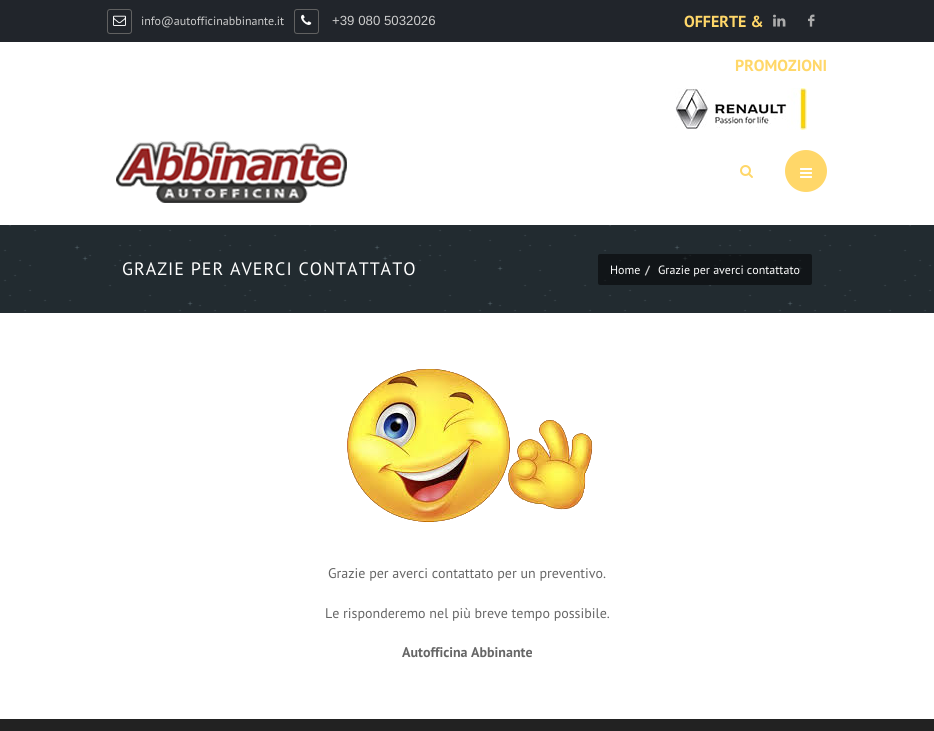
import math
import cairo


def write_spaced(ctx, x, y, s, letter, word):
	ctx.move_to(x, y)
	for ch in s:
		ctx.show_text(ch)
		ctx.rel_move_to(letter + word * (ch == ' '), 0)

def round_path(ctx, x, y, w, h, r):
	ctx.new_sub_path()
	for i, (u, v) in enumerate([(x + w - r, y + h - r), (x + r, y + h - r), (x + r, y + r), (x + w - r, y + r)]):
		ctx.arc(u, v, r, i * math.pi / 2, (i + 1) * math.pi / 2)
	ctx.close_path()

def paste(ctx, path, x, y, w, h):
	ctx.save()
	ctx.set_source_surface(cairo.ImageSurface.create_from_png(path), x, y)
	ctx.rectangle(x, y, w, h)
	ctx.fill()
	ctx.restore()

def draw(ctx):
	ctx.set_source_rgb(1, 1, 1)
	ctx.paint()
	ctx.set_source_rgb(0.129, 0.145, 0.169)
	ctx.rectangle(0, 0, 934, 42)
	ctx.fill()
	round_path(ctx, 107.5, 9.5, 24, 24, 2.5)
	ctx.set_source_rgb(0.38, 0.38, 0.38)
	ctx.set_line_width(1)
	ctx.stroke()
	paste(ctx, 'media/1.png', 113, 15, 13, 11)
	ctx.select_font_face('PT Sans')
	ctx.set_font_size(12)
	ctx.set_source_rgb(0.8, 0.8, 0.8)
	ctx.move_to(141, 25)
	ctx.show_text('info@autofficinabbinante.it')
	round_path(ctx, 294.5, 9.5, 24, 24, 2.5)
	ctx.set_source_rgb(0.38, 0.38, 0.38)
	ctx.stroke()
	paste(ctx, 'media/2.png', 301, 14, 11, 11)
	ctx.select_font_face('Liberation Sans')
	ctx.set_font_size(13.25)
	ctx.set_source_rgb(0.8, 0.8, 0.8)
	ctx.move_to(332, 25)
	ctx.show_text('+39 080 5032026')
	paste(ctx, 'media/3.png', 773, 14, 13, 13)
	paste(ctx, 'media/4.png', 808, 14, 7, 13)
	ctx.select_font_face('PT Sans', cairo.FONT_SLANT_NORMAL, cairo.FONT_WEIGHT_BOLD)
	ctx.set_font_size(16)
	ctx.set_source_rgb(1, 0.843, 0.412)
	ctx.move_to(684, 27)
	ctx.show_text('OFFERTE &')
	ctx.move_to(735, 71)
	ctx.show_text('PROMOZIONI')
	paste(ctx, 'media/5.png', 675, 88, 132, 42)
	paste(ctx, 'media/6.png', 116, 141, 231, 62)
	paste(ctx, 'media/7.png', 740, 165, 13, 13)
	ctx.arc(806, 171, 20, 0, 2 * math.pi)
	ctx.fill_preserve()
	ctx.set_line_width(2)
	ctx.stroke()
	paste(ctx, 'media/8.png', 800, 168, 12, 10)
	paste(ctx, 'media/9.png', 0, 225, 934, 88)
	ctx.select_font_face('PT Sans')
	ctx.set_font_size(18)
	ctx.set_source_rgb(1, 1, 1)
	write_spaced(ctx, 122, 275, 'GRAZIE PER AVERCI CONTATTATO', 1, 0)
	ctx.set_source_rgba(0, 0, 0, 0.5)
	round_path(ctx, 598, 254, 214, 31, 2)
	ctx.fill()
	ctx.set_font_size(12)
	ctx.set_source_rgb(1, 1, 1)
	ctx.move_to(610, 274)
	ctx.show_text('Home')
	ctx.select_font_face('PT Sans', cairo.FONT_SLANT_NORMAL, cairo.FONT_WEIGHT_BOLD)
	ctx.set_source_rgb(0.8, 0.8, 0.8)
	ctx.move_to(645, 274)
	ctx.show_text('/')
	ctx.select_font_face('PT Sans')
	ctx.set_source_rgb(1, 1, 1)
	ctx.move_to(658, 274)
	ctx.show_text('Grazie per averci contattato')
	paste(ctx, 'media/10.png', 347, 369, 246, 153)
	ctx.set_font_size(14)
	ctx.set_source_rgb(0.4, 0.4, 0.4)
	ctx.move_to(328, 578)
	ctx.show_text('Grazie per averci contattato per un preventivo.')
	ctx.move_to(325, 618)
	ctx.show_text('Le risponderemo nel più breve tempo possibile.')
	ctx.select_font_face('PT Sans', cairo.FONT_SLANT_NORMAL, cairo.FONT_WEIGHT_BOLD)
	ctx.move_to(402, 657)
	ctx.show_text('Autofficina Abbinante')
	ctx.set_source_rgb(0.133, 0.133, 0.133)
	ctx.rectangle(0, 719, 934, 12)
	ctx.fill()


surface = cairo.ImageSurface(cairo.FORMAT_RGB24, 934, 731)
ctx = cairo.Context(surface)
options = cairo.FontOptions()
options.set_hint_metrics(cairo.HINT_METRICS_OFF)
options.set_hint_style(cairo.HINT_STYLE_NONE)
ctx.set_font_options(options)
ctx.set_miter_limit(4)
draw(ctx)
surface.write_to_png('image.png')
